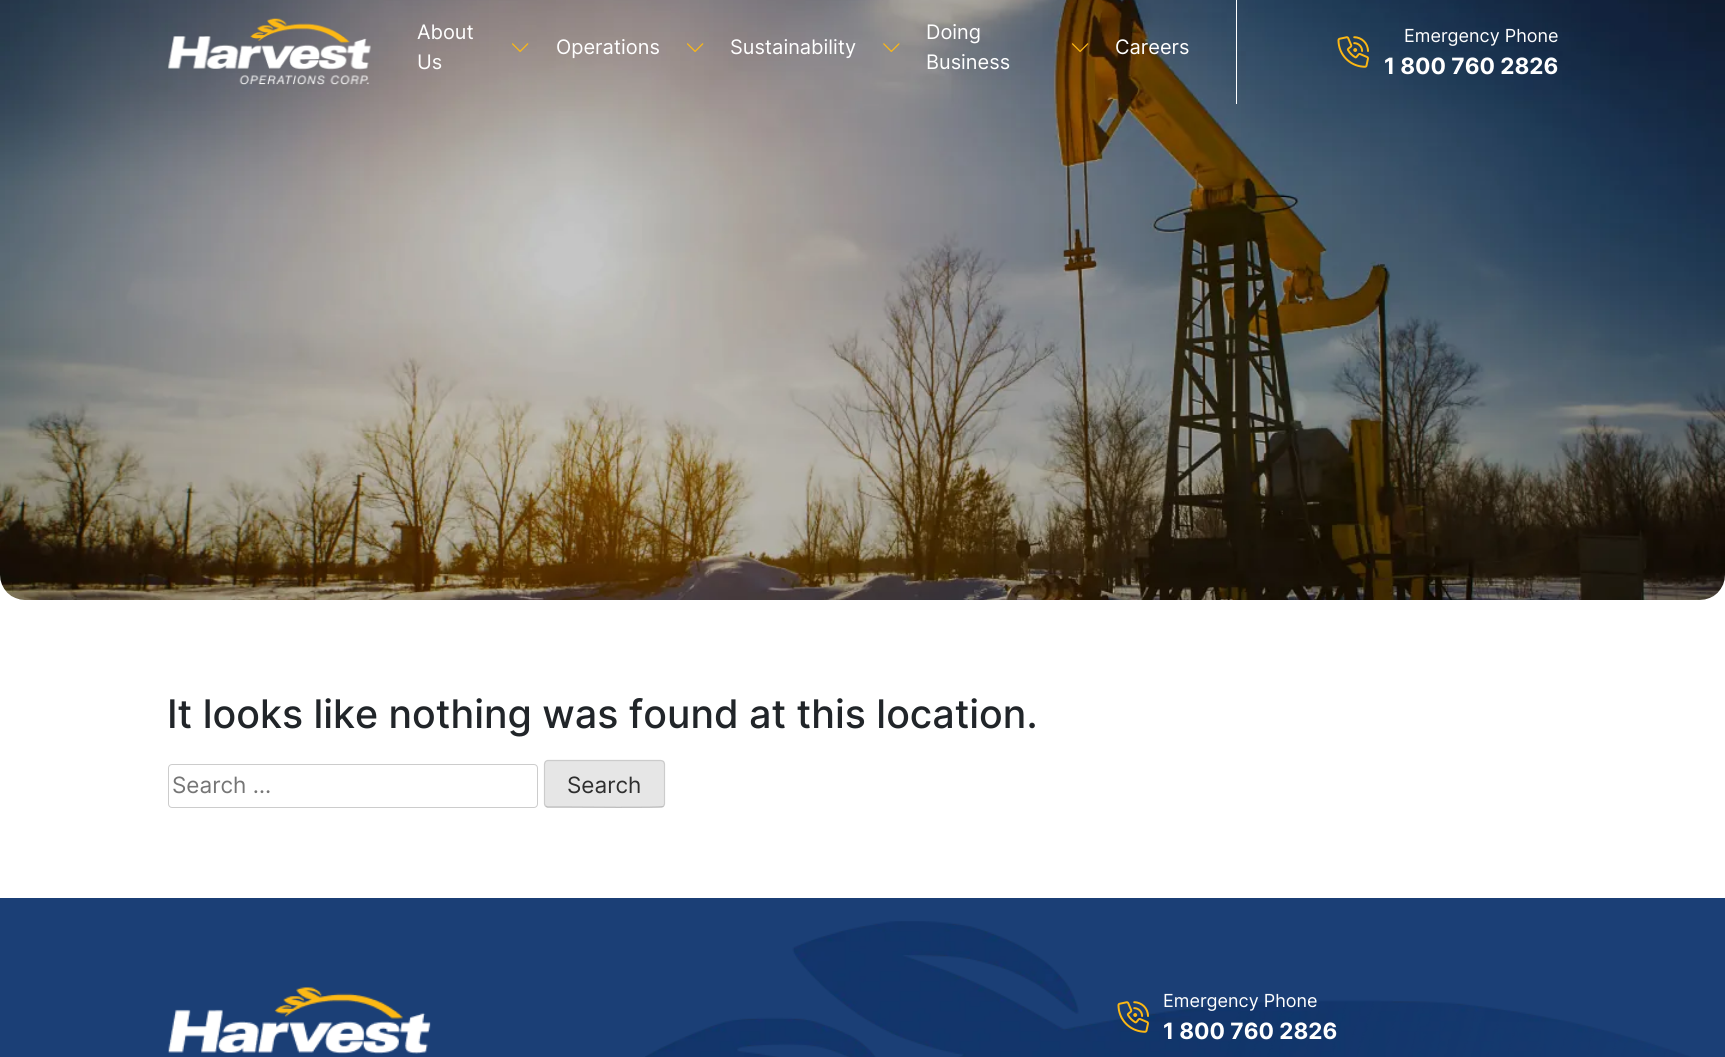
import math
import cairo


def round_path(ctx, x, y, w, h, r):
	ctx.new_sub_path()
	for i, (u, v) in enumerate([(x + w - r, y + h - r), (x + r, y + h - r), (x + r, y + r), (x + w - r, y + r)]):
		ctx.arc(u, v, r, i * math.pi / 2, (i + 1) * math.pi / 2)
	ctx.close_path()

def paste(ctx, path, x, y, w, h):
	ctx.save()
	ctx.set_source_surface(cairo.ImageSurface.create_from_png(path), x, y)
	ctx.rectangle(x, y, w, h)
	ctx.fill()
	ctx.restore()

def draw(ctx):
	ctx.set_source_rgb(1, 1, 1)
	ctx.paint()
	paste(ctx, 'media/1.png', 0, 0, 1725, 600)
	paste(ctx, 'media/2.png', 168, 18, 203, 67)
	ctx.select_font_face('Inter')
	ctx.set_font_size(20)
	ctx.set_source_rgb(1, 1, 1)
	ctx.move_to(417, 39)
	ctx.show_text('About')
	paste(ctx, 'media/3.png', 512, 43, 17, 9)
	ctx.move_to(417, 69)
	ctx.show_text('Us')
	ctx.move_to(556, 54)
	ctx.show_text('Operations')
	paste(ctx, 'media/4.png', 687, 43, 17, 9)
	ctx.move_to(730, 54)
	ctx.show_text('Sustainability')
	paste(ctx, 'media/5.png', 883, 43, 17, 9)
	ctx.move_to(926, 39)
	ctx.show_text('Doing')
	paste(ctx, 'media/6.png', 1071, 43, 18, 9)
	ctx.move_to(926, 69)
	ctx.show_text('Business')
	ctx.move_to(1115, 54)
	ctx.show_text('Careers')
	ctx.rectangle(1236, 0, 1, 104)
	ctx.fill()
	paste(ctx, 'media/7.png', 1337, 36, 32, 32)
	ctx.set_font_size(18)
	ctx.move_to(1404, 42)
	ctx.show_text('Emergency Phone')
	ctx.select_font_face('Inter', cairo.FONT_SLANT_NORMAL, cairo.FONT_WEIGHT_BOLD)
	ctx.set_font_size(22.5)
	ctx.move_to(1384, 74)
	ctx.show_text('1 800 760 2826')
	ctx.select_font_face('Inter Medium')
	ctx.set_font_size(39.4)
	ctx.set_source_rgb(0.129, 0.145, 0.161)
	ctx.move_to(167, 728)
	ctx.show_text('It looks like nothing was found at this location.')
	round_path(ctx, 168.5, 764.5, 369, 43, 3.5)
	ctx.set_source_rgb(0.8, 0.8, 0.8)
	ctx.set_line_width(1)
	ctx.stroke()
	ctx.select_font_face('Inter')
	ctx.set_font_size(22.5)
	ctx.set_source_rgb(0.459, 0.459, 0.459)
	ctx.move_to(172, 793)
	ctx.show_text('Search …')
	ctx.set_source_rgb(0.902, 0.902, 0.902)
	round_path(ctx, 544, 760, 121, 48, 4)
	ctx.fill()
	ctx.new_path()
	ctx.move_to(663.5, 806)
	ctx.line_to(663, 806.5)
	ctx.curve_to(660.5, 808, 576.5, 807, 566.5, 807)
	ctx.line_to(547.5, 807)
	ctx.line_to(545.5, 806)
	ctx.set_source_rgb(0.733, 0.733, 0.733)
	ctx.set_line_width(1.2)
	ctx.stroke()
	ctx.new_path()
	ctx.move_to(545.5, 806)
	ctx.line_to(544.5, 804)
	ctx.line_to(544.5, 764)
	ctx.line_to(545.5, 761.5)
	ctx.line_to(547.5, 760.5)
	ctx.line_to(661, 760.5)
	ctx.line_to(663.5, 761.5)
	ctx.line_to(664.5, 764)
	ctx.line_to(664.5, 804)
	ctx.line_to(663.5, 806)
	ctx.set_source_rgb(0.8, 0.8, 0.8)
	ctx.stroke()
	ctx.set_source_rgb(0.18, 0.18, 0.18)
	ctx.move_to(567, 793)
	ctx.show_text('Search')
	ctx.set_source_rgb(0.106, 0.247, 0.463)
	ctx.rectangle(0, 898, 1725, 159)
	ctx.fill()
	paste(ctx, 'media/8.png', 645, 921, 1046, 136)
	paste(ctx, 'media/9.png', 168, 987, 263, 67)
	paste(ctx, 'media/10.png', 1117, 1001, 32, 32)
	ctx.set_font_size(18)
	ctx.set_source_rgb(1, 1, 1)
	ctx.move_to(1163, 1007)
	ctx.show_text('Emergency Phone')
	ctx.select_font_face('Inter', cairo.FONT_SLANT_NORMAL, cairo.FONT_WEIGHT_BOLD)
	ctx.set_font_size(22.5)
	ctx.move_to(1163, 1039)
	ctx.show_text('1 800 760 2826')


surface = cairo.ImageSurface(cairo.FORMAT_RGB24, 1725, 1057)
ctx = cairo.Context(surface)
options = cairo.FontOptions()
options.set_hint_metrics(cairo.HINT_METRICS_OFF)
options.set_hint_style(cairo.HINT_STYLE_NONE)
ctx.set_font_options(options)
ctx.set_miter_limit(4)
draw(ctx)
surface.write_to_png('image.png')
